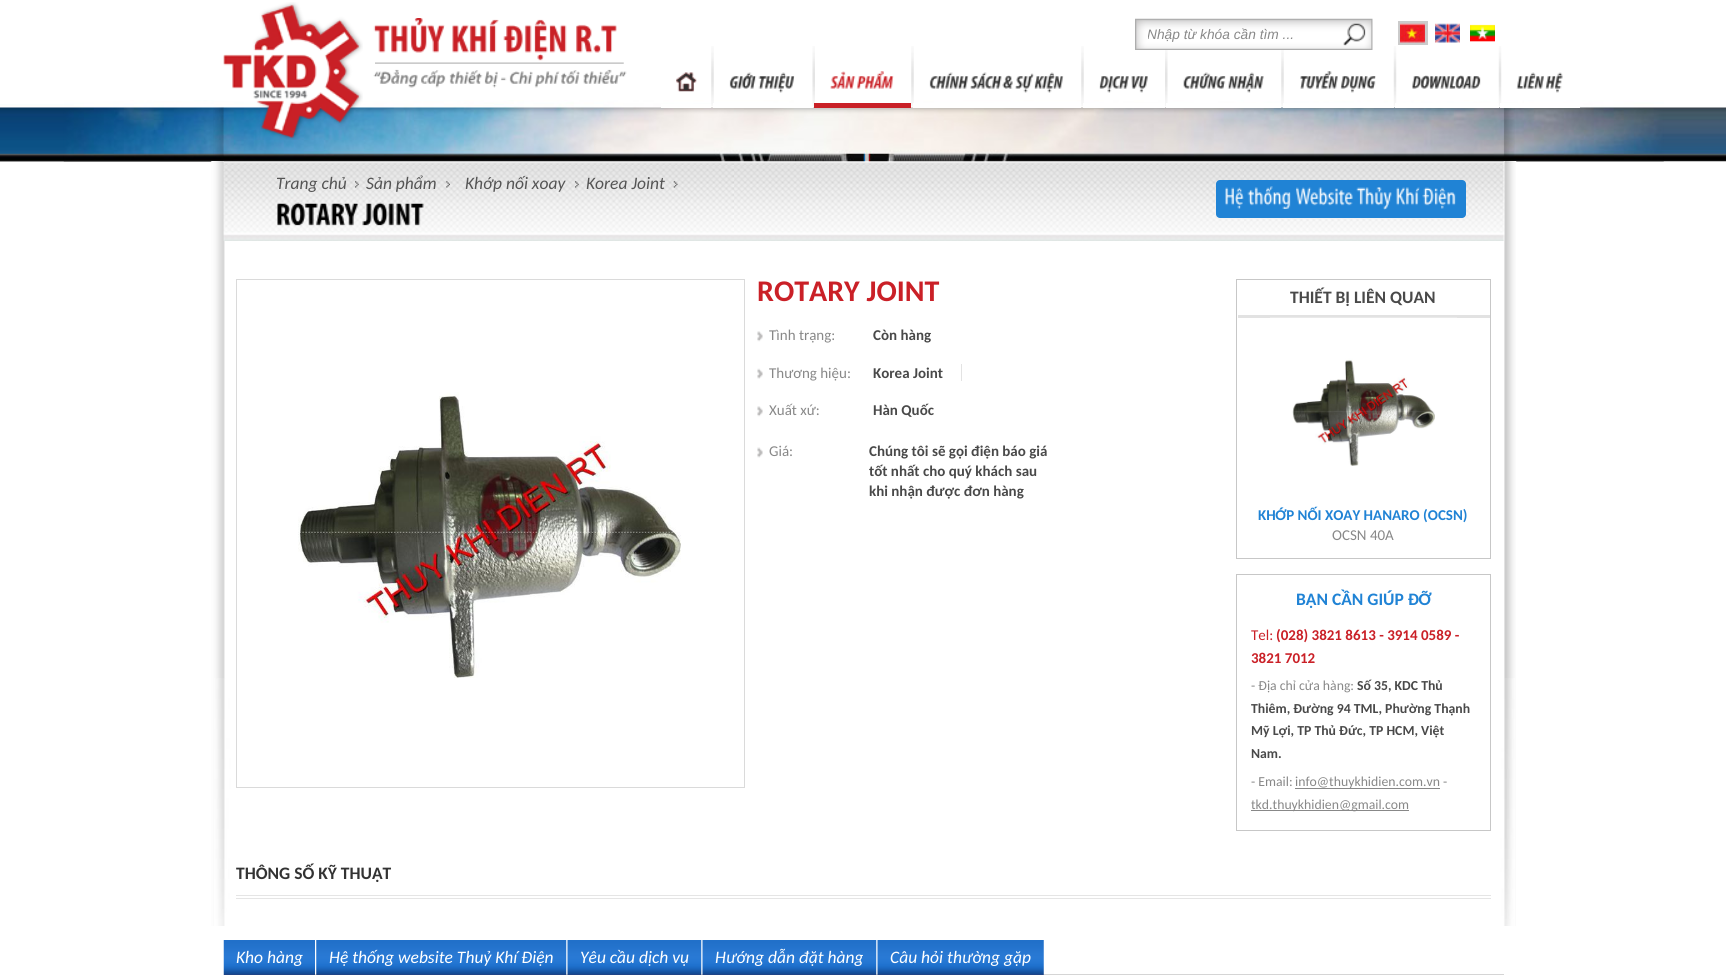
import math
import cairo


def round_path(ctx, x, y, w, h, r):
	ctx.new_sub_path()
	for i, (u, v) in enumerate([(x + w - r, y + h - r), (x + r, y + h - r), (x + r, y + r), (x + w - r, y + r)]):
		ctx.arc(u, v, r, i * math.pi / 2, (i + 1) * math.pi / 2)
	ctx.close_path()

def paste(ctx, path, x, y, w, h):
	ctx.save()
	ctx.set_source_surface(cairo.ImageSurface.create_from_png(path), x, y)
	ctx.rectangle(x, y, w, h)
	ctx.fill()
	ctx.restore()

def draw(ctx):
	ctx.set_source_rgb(1, 1, 1)
	ctx.paint()
	paste(ctx, 'media/1.png', 0, 107, 1726, 55)
	paste(ctx, 'media/2.png', 0, 104, 212, 58)
	paste(ctx, 'media/3.png', 63, 100, 1601, 62)
	paste(ctx, 'media/51.png', 211, 161, 1306, 765)
	paste(ctx, 'media/52.png', 213, 107, 11, 55)
	paste(ctx, 'media/53.png', 1503, 108, 12, 54)
	paste(ctx, 'media/55.png', 223, 161, 1282, 80)
	paste(ctx, 'media/4.png', 223, 108, 1281, 54)
	paste(ctx, 'media/5.png', 223, 2, 140, 138)
	paste(ctx, 'media/6.png', 375, 62, 249, 2)
	paste(ctx, 'media/7.png', 373, 18, 72, 35)
	paste(ctx, 'media/8.png', 452, 19, 47, 34)
	paste(ctx, 'media/9.png', 503, 19, 64, 42)
	paste(ctx, 'media/10.png', 576, 24, 41, 29)
	paste(ctx, 'media/11.png', 373, 69, 45, 19)
	paste(ctx, 'media/12.png', 421, 70, 25, 18)
	paste(ctx, 'media/13.png', 449, 70, 34, 14)
	paste(ctx, 'media/14.png', 484, 71, 14, 17)
	paste(ctx, 'media/15.png', 500, 77, 7, 4)
	paste(ctx, 'media/16.png', 509, 71, 24, 13)
	paste(ctx, 'media/17.png', 534, 71, 26, 17)
	paste(ctx, 'media/18.png', 561, 70, 19, 14)
	paste(ctx, 'media/19.png', 583, 69, 44, 15)
	paste(ctx, 'media/20.png', 1135, 18, 238, 32)
	ctx.save()
	ctx.rectangle(1148, 24, 187, 21)
	ctx.clip()
	ctx.select_font_face('Liberation Sans', cairo.FONT_SLANT_ITALIC)
	ctx.set_font_size(13.75)
	ctx.set_source_rgb(0.533, 0.533, 0.533)
	ctx.move_to(1147, 39)
	ctx.show_text('Nhập từ khóa cần tìm ...')
	ctx.restore()
	ctx.rectangle(1399.5, 22.5, 27, 21)
	ctx.set_source_rgb(0.796, 0.796, 0.796)
	ctx.set_line_width(3)
	ctx.stroke()
	paste(ctx, 'media/21.png', 1400, 23, 25, 20)
	paste(ctx, 'media/22.png', 1435, 23, 25, 20)
	paste(ctx, 'media/23.png', 1470, 24, 25, 18)
	paste(ctx, 'media/24.png', 676, 72, 21, 20)
	ctx.set_source_rgb(1, 1, 1)
	ctx.rectangle(661, 104, 50, 4)
	ctx.fill()
	paste(ctx, 'media/25.png', 711, 46, 3, 60)
	ctx.rectangle(713, 103, 100, 5)
	ctx.fill()
	paste(ctx, 'media/26.png', 729, 72, 28, 17)
	paste(ctx, 'media/27.png', 758, 72, 37, 21)
	paste(ctx, 'media/28.png', 812, 46, 3, 60)
	ctx.set_source_rgb(0.788, 0.125, 0.149)
	ctx.rectangle(814, 103, 97, 5)
	ctx.fill()
	paste(ctx, 'media/29.png', 830, 71, 26, 18)
	paste(ctx, 'media/30.png', 856, 71, 38, 18)
	paste(ctx, 'media/31.png', 911, 46, 3, 60)
	ctx.set_source_rgb(1, 1, 1)
	ctx.rectangle(913, 103, 168, 5)
	ctx.fill()
	paste(ctx, 'media/32.png', 929, 72, 40, 17)
	paste(ctx, 'media/33.png', 970, 72, 32, 17)
	paste(ctx, 'media/34.png', 1002, 75, 11, 14)
	paste(ctx, 'media/35.png', 1015, 73, 19, 20)
	paste(ctx, 'media/36.png', 1034, 72, 30, 21)
	paste(ctx, 'media/37.png', 1081, 46, 3, 60)
	ctx.rectangle(1083, 103, 82, 5)
	ctx.fill()
	paste(ctx, 'media/38.png', 1099, 76, 30, 17)
	paste(ctx, 'media/39.png', 1131, 76, 17, 17)
	paste(ctx, 'media/40.png', 1165, 50, 3, 56)
	ctx.rectangle(1166, 103, 115, 5)
	ctx.fill()
	paste(ctx, 'media/41.png', 1183, 72, 43, 17)
	paste(ctx, 'media/42.png', 1227, 72, 37, 21)
	paste(ctx, 'media/43.png', 1281, 50, 3, 56)
	ctx.rectangle(1283, 103, 111, 5)
	ctx.fill()
	paste(ctx, 'media/44.png', 1300, 71, 38, 18)
	paste(ctx, 'media/45.png', 1340, 76, 36, 17)
	paste(ctx, 'media/46.png', 1393, 46, 4, 60)
	ctx.rectangle(1395, 103, 104, 5)
	ctx.fill()
	paste(ctx, 'media/47.png', 1412, 75, 69, 14)
	paste(ctx, 'media/48.png', 1498, 46, 4, 60)
	ctx.rectangle(1500, 103, 80, 5)
	ctx.fill()
	paste(ctx, 'media/49.png', 1516, 72, 28, 17)
	paste(ctx, 'media/50.png', 1545, 72, 18, 21)
	paste(ctx, 'media/54.png', 214, 678, 1301, 248)
	paste(ctx, 'media/56.png', 355, 181, 4, 7)
	ctx.select_font_face('Carlito', cairo.FONT_SLANT_ITALIC)
	ctx.set_font_size(17.5)
	ctx.set_source_rgb(0.333, 0.333, 0.333)
	ctx.move_to(276, 189)
	ctx.show_text('Trang chủ')
	paste(ctx, 'media/57.png', 446, 181, 4, 7)
	ctx.move_to(366, 189)
	ctx.show_text('Sản phẩm')
	paste(ctx, 'media/58.png', 575, 181, 4, 7)
	ctx.move_to(465, 189)
	ctx.show_text('Khớp nối xoay')
	paste(ctx, 'media/59.png', 673, 181, 5, 7)
	ctx.move_to(586, 189)
	ctx.show_text('Korea Joint')
	ctx.set_source_rgb(0.125, 0.514, 0.835)
	round_path(ctx, 1216, 180, 250, 38, 4)
	ctx.fill()
	paste(ctx, 'media/60.png', 1225, 187, 19, 22)
	paste(ctx, 'media/61.png', 1247, 186, 44, 23)
	paste(ctx, 'media/62.png', 1296, 187, 57, 19)
	paste(ctx, 'media/63.png', 1356, 187, 36, 23)
	paste(ctx, 'media/64.png', 1396, 187, 24, 19)
	paste(ctx, 'media/65.png', 1422, 187, 34, 22)
	paste(ctx, 'media/66.png', 277, 202, 82, 24)
	paste(ctx, 'media/67.png', 362, 202, 62, 24)
	ctx.rectangle(236.5, 279.5, 508, 508)
	ctx.set_source_rgb(0.855, 0.855, 0.855)
	ctx.set_line_width(1)
	ctx.stroke()
	paste(ctx, 'media/68.png', 298, 392, 383, 286)
	ctx.select_font_face('Carlito', cairo.FONT_SLANT_NORMAL, cairo.FONT_WEIGHT_BOLD)
	ctx.set_font_size(30)
	ctx.set_source_rgb(0.792, 0.125, 0.153)
	ctx.move_to(757, 301)
	ctx.show_text('ROTARY JOINT')
	paste(ctx, 'media/69.png', 757, 331, 6, 11)
	ctx.select_font_face('Carlito')
	ctx.set_font_size(15)
	ctx.set_source_rgb(0.533, 0.533, 0.533)
	ctx.move_to(769, 340)
	ctx.show_text('Tình trạng:')
	ctx.select_font_face('Carlito', cairo.FONT_SLANT_NORMAL, cairo.FONT_WEIGHT_BOLD)
	ctx.set_source_rgb(0.286, 0.286, 0.286)
	ctx.move_to(873, 340)
	ctx.show_text('Còn hàng')
	paste(ctx, 'media/70.png', 757, 368, 6, 11)
	ctx.select_font_face('Carlito')
	ctx.set_source_rgb(0.533, 0.533, 0.533)
	ctx.move_to(769, 378)
	ctx.show_text('Thương hiệu:')
	ctx.select_font_face('Carlito', cairo.FONT_SLANT_NORMAL, cairo.FONT_WEIGHT_BOLD)
	ctx.set_source_rgb(0.286, 0.286, 0.286)
	ctx.move_to(873, 378)
	ctx.show_text('Korea Joint')
	ctx.set_source_rgb(0.89, 0.89, 0.89)
	ctx.rectangle(961, 364, 1, 17)
	ctx.fill()
	paste(ctx, 'media/69.png', 757, 406, 6, 11)
	ctx.select_font_face('Carlito')
	ctx.set_source_rgb(0.533, 0.533, 0.533)
	ctx.move_to(769, 415)
	ctx.show_text('Xuất xứ:')
	ctx.select_font_face('Carlito', cairo.FONT_SLANT_NORMAL, cairo.FONT_WEIGHT_BOLD)
	ctx.set_source_rgb(0.286, 0.286, 0.286)
	ctx.move_to(873, 415)
	ctx.show_text('Hàn Quốc')
	paste(ctx, 'media/71.png', 757, 447, 6, 11)
	ctx.select_font_face('Carlito')
	ctx.set_source_rgb(0.533, 0.533, 0.533)
	ctx.move_to(769, 456)
	ctx.show_text('Giá:')
	ctx.select_font_face('Carlito', cairo.FONT_SLANT_NORMAL, cairo.FONT_WEIGHT_BOLD)
	ctx.set_source_rgb(0.286, 0.286, 0.286)
	for x, y, s in [
		(869, 456, 'Chúng tôi sẽ gọi điện báo giá'),
		(869, 476, 'tốt nhất cho quý khách sau'),
		(869, 496, 'khi nhận được đơn hàng'),
	]:
		ctx.move_to(x, y)
		ctx.show_text(s)
	ctx.rectangle(1236.5, 279.5, 254, 279)
	ctx.set_source_rgb(0.78, 0.78, 0.78)
	ctx.stroke()
	ctx.set_source_rgb(0.886, 0.886, 0.886)
	ctx.rectangle(1238, 315, 252, 3)
	ctx.fill()
	ctx.set_font_size(17.5)
	ctx.set_source_rgb(0.286, 0.286, 0.286)
	ctx.move_to(1290, 303)
	ctx.show_text('THIẾT BỊ LIÊN QUAN')
	paste(ctx, 'media/72.png', 1270, 317, 187, 149)
	ctx.set_font_size(15)
	ctx.set_source_rgb(0.125, 0.514, 0.835)
	ctx.move_to(1258, 520)
	ctx.show_text('KHỚP NỐI XOAY HANARO (OCSN)')
	ctx.select_font_face('Carlito')
	ctx.set_source_rgb(0.533, 0.533, 0.533)
	ctx.move_to(1332, 540)
	ctx.show_text('OCSN 40A')
	ctx.rectangle(1236.5, 574.5, 254, 256)
	ctx.set_source_rgb(0.78, 0.78, 0.78)
	ctx.stroke()
	ctx.select_font_face('Carlito', cairo.FONT_SLANT_NORMAL, cairo.FONT_WEIGHT_BOLD)
	ctx.set_font_size(17.5)
	ctx.set_source_rgb(0.125, 0.514, 0.835)
	ctx.move_to(1296, 605)
	ctx.show_text('BẠN CẦN GIÚP ĐỠ')
	ctx.select_font_face('Carlito')
	ctx.set_font_size(15)
	ctx.set_source_rgb(0.792, 0.125, 0.153)
	ctx.move_to(1251, 640)
	ctx.show_text('Tel:')
	ctx.select_font_face('Carlito', cairo.FONT_SLANT_NORMAL, cairo.FONT_WEIGHT_BOLD)
	ctx.move_to(1276, 640)
	ctx.show_text('(028) 3821 8613 - 3914 0589 -')
	ctx.move_to(1251, 663)
	ctx.show_text('3821 7012')
	ctx.select_font_face('Carlito')
	ctx.set_font_size(13.75)
	ctx.set_source_rgb(0.533, 0.533, 0.533)
	ctx.move_to(1251, 690)
	ctx.show_text('- Địa chỉ cửa hàng:')
	ctx.select_font_face('Carlito', cairo.FONT_SLANT_NORMAL, cairo.FONT_WEIGHT_BOLD)
	ctx.set_source_rgb(0.286, 0.286, 0.286)
	for x, y, s in [
		(1357, 690, 'Số 35, KDC Thủ'),
		(1251, 713, 'Thiêm, Đường 94 TML, Phường Thạnh'),
		(1251, 735, 'Mỹ Lợi, TP Thủ Đức, TP HCM, Việt'),
		(1251, 758, 'Nam.'),
	]:
		ctx.move_to(x, y)
		ctx.show_text(s)
	ctx.select_font_face('Carlito')
	ctx.set_source_rgb(0.533, 0.533, 0.533)
	ctx.move_to(1251, 786)
	ctx.show_text('- Email:')
	ctx.rectangle(1295, 788, 145, 1)
	ctx.fill()
	ctx.move_to(1295, 786)
	ctx.show_text('info@thuykhidien.com.vn -')
	ctx.rectangle(1251, 810, 158, 1)
	ctx.fill()
	ctx.move_to(1251, 809)
	ctx.show_text('tkd.thuykhidien@gmail.com')
	ctx.set_source_rgb(0.898, 0.898, 0.898)
	ctx.rectangle(236, 895, 1255, 1)
	ctx.fill()
	ctx.rectangle(236, 898, 1255, 1)
	ctx.fill()
	ctx.save()
	ctx.rectangle(236, 846, 1255, 49)
	ctx.clip()
	ctx.select_font_face('Carlito', cairo.FONT_SLANT_NORMAL, cairo.FONT_WEIGHT_BOLD)
	ctx.set_font_size(17.5)
	ctx.set_source_rgb(0.2, 0.2, 0.2)
	ctx.move_to(236, 879)
	ctx.show_text('THÔNG SỐ KỸ THUẬT')
	ctx.restore()
	ctx.set_source_rgb(0.835, 0.835, 0.835)
	ctx.rectangle(315, 974, 1189, 1)
	ctx.fill()
	paste(ctx, 'media/73.png', 223, 940, 92, 35)
	ctx.select_font_face('Carlito', cairo.FONT_SLANT_ITALIC)
	ctx.set_font_size(17.5)
	ctx.set_source_rgb(1, 1, 1)
	ctx.move_to(236, 963)
	ctx.show_text('Kho hàng')
	paste(ctx, 'media/74.png', 316, 940, 251, 35)
	ctx.move_to(329, 963)
	ctx.show_text('Hệ thống website Thuỷ Khí Điện')
	paste(ctx, 'media/75.png', 567, 940, 135, 35)
	ctx.move_to(580, 963)
	ctx.show_text('Yêu cầu dịch vụ')
	paste(ctx, 'media/76.png', 702, 940, 175, 35)
	ctx.move_to(715, 963)
	ctx.show_text('Hướng dẫn đặt hàng')
	paste(ctx, 'media/77.png', 877, 940, 167, 35)
	ctx.move_to(890, 963)
	ctx.show_text('Câu hỏi thường gặp')


surface = cairo.ImageSurface(cairo.FORMAT_RGB24, 1726, 975)
ctx = cairo.Context(surface)
options = cairo.FontOptions()
options.set_hint_metrics(cairo.HINT_METRICS_OFF)
options.set_hint_style(cairo.HINT_STYLE_NONE)
ctx.set_font_options(options)
ctx.set_miter_limit(4)
draw(ctx)
surface.write_to_png('image.png')
